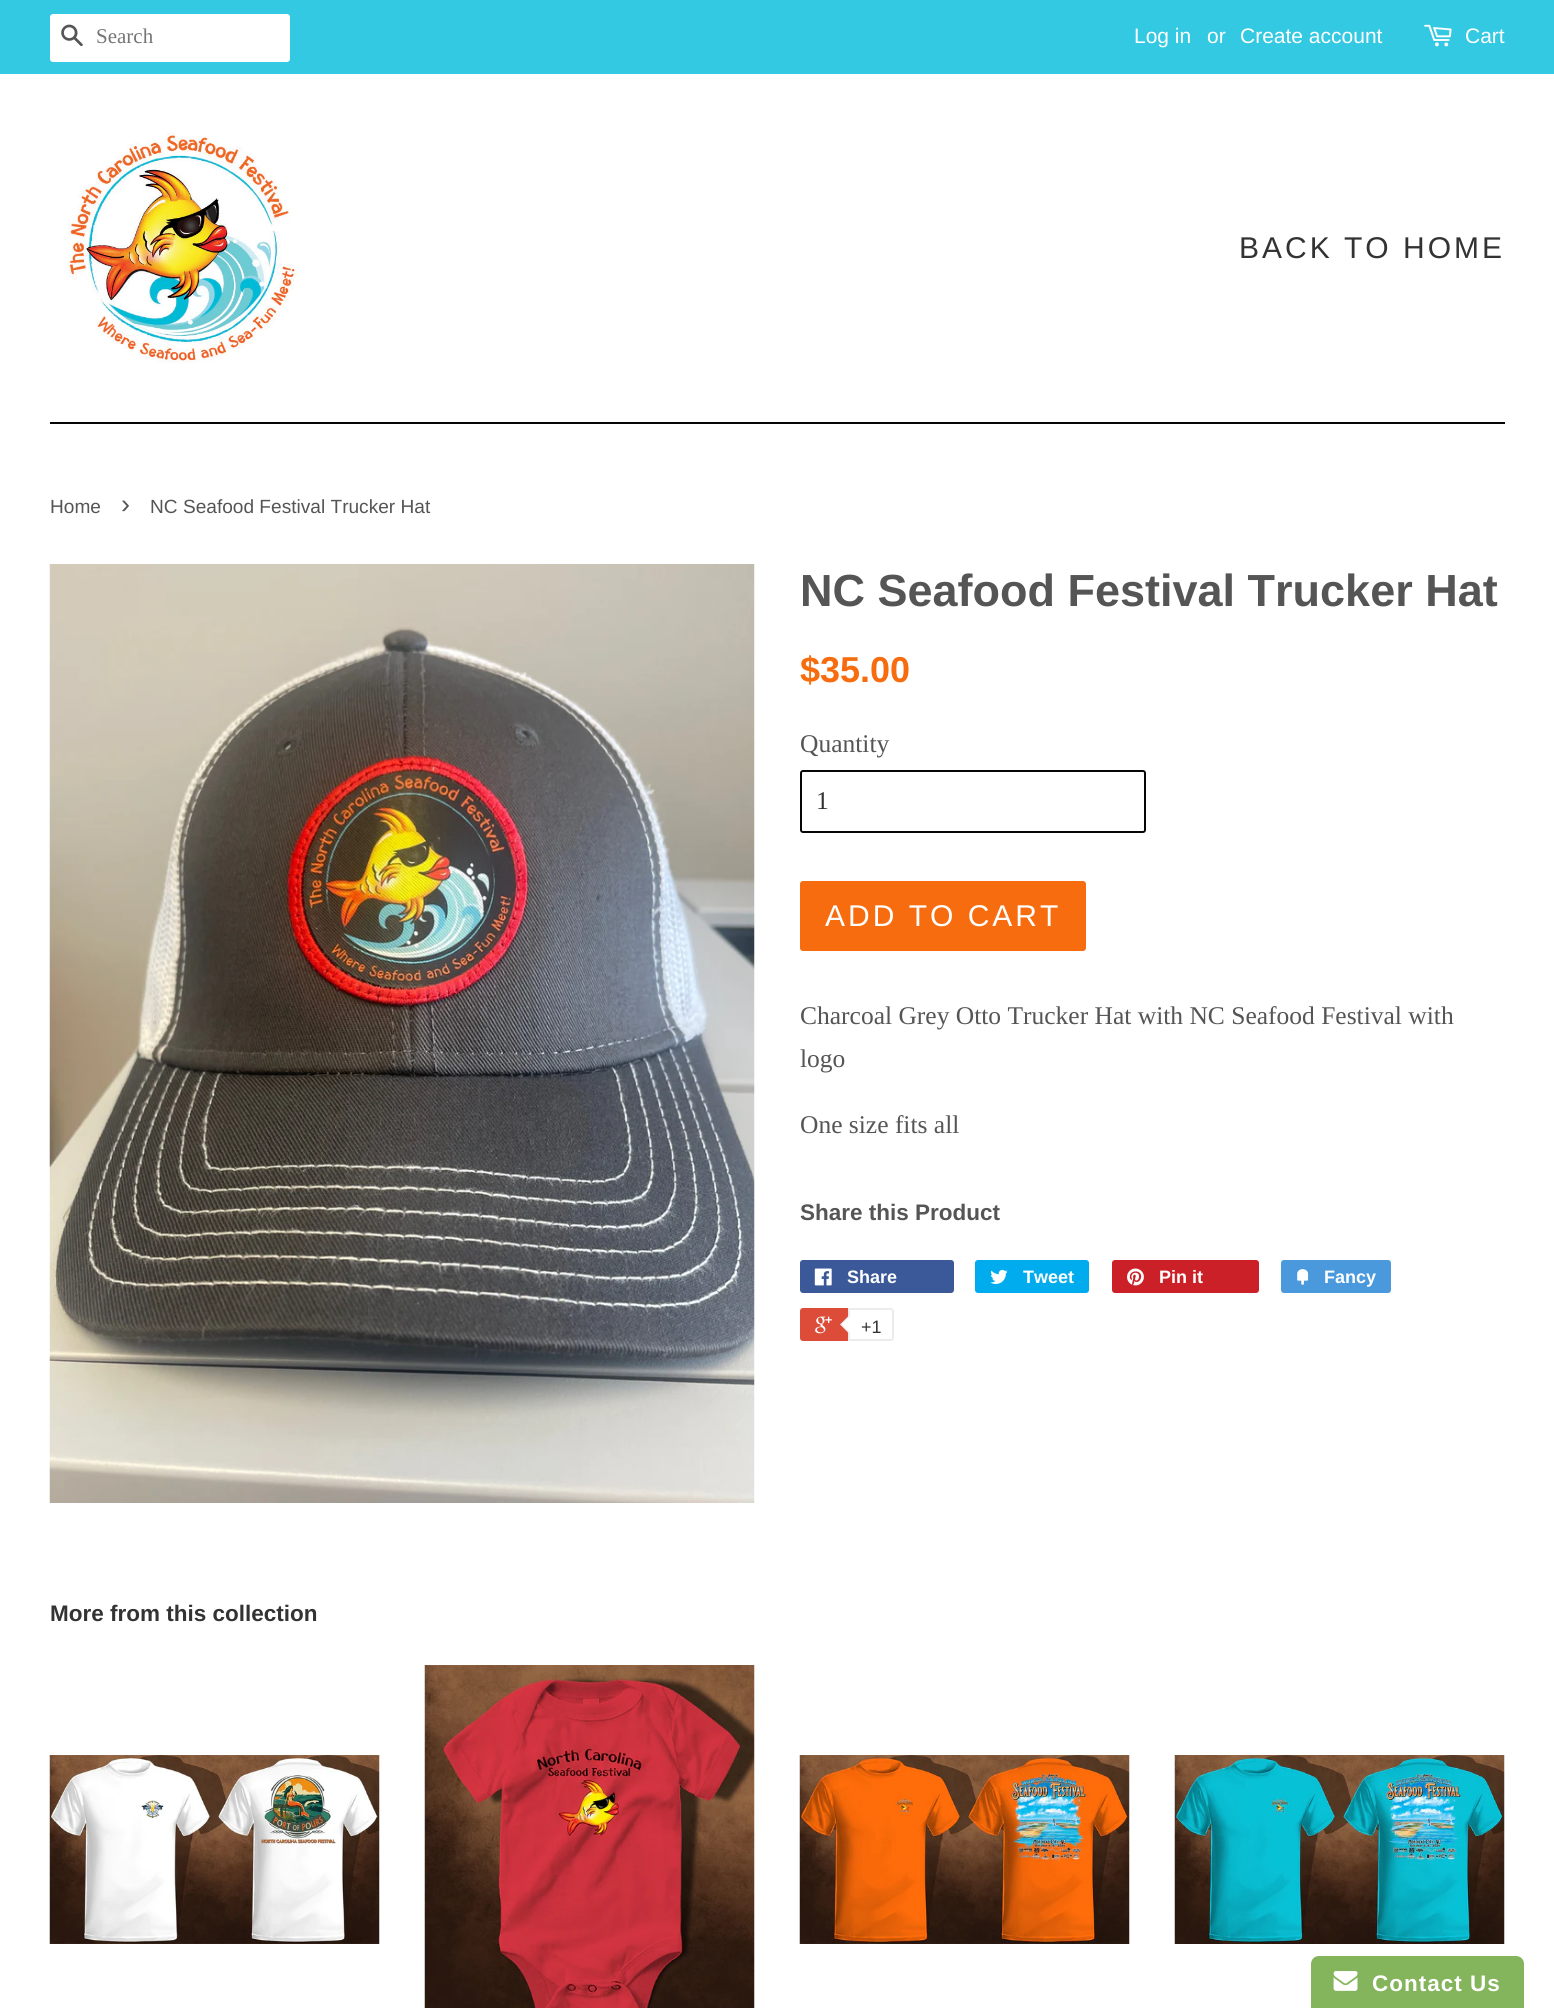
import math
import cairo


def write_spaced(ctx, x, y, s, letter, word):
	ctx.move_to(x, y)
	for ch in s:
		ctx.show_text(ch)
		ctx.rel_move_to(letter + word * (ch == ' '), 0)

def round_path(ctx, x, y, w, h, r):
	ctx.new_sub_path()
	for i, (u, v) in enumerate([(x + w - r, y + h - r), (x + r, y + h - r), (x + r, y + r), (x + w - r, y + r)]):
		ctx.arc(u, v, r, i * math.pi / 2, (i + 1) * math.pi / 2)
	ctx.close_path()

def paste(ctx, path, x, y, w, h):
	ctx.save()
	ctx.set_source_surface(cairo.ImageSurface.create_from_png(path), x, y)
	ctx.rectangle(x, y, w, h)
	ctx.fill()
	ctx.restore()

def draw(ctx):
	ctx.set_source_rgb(1, 1, 1)
	ctx.paint()
	ctx.set_source_rgb(0.204, 0.788, 0.886)
	ctx.rectangle(0, 0, 1554, 74)
	ctx.fill()
	ctx.set_source_rgb(1, 1, 1)
	round_path(ctx, 50, 14, 240, 48, 3)
	ctx.fill()
	paste(ctx, 'media/1.png', 61, 24, 22, 23)
	ctx.select_font_face('Liberation Serif')
	ctx.set_font_size(21)
	ctx.set_source_rgb(0.459, 0.459, 0.459)
	ctx.move_to(96, 43)
	ctx.show_text('Search')
	ctx.select_font_face('Liberation Sans')
	ctx.set_source_rgb(1, 1, 1)
	for x, y, s in [
		(1134, 43, 'Log in'),
		(1207, 43, 'or'),
		(1240, 43, 'Create account'),
	]:
		ctx.move_to(x, y)
		ctx.show_text(s)
	paste(ctx, 'media/2.png', 1424, 24, 28, 23)
	ctx.move_to(1465, 43)
	ctx.show_text('Cart')
	ctx.set_source_rgb(0.027, 0.027, 0.027)
	ctx.rectangle(50, 422, 1455, 2)
	ctx.fill()
	paste(ctx, 'media/3.png', 68, 132, 231, 231)
	ctx.set_font_size(30)
	ctx.set_source_rgb(0.2, 0.2, 0.2)
	write_spaced(ctx, 1239, 258, 'BACK TO HOME', 3, 0)
	ctx.set_font_size(19.1)
	ctx.set_source_rgb(0.333, 0.333, 0.333)
	ctx.move_to(50, 513)
	ctx.show_text('Home')
	ctx.set_font_size(27)
	ctx.move_to(121, 513)
	ctx.show_text('›')
	ctx.set_font_size(19.1)
	ctx.move_to(150, 513)
	ctx.show_text('NC Seafood Festival Trucker Hat')
	paste(ctx, 'media/4.png', 49, 564, 706, 939)
	ctx.select_font_face('Liberation Sans', cairo.FONT_SLANT_NORMAL, cairo.FONT_WEIGHT_BOLD)
	ctx.set_font_size(45)
	ctx.move_to(800, 606)
	ctx.show_text('NC Seafood Festival Trucker Hat')
	ctx.set_font_size(36)
	ctx.set_source_rgb(0.965, 0.424, 0.055)
	ctx.move_to(800, 682)
	ctx.show_text('$35.00')
	ctx.select_font_face('Liberation Serif')
	ctx.set_font_size(25.5)
	ctx.set_source_rgb(0.333, 0.333, 0.333)
	ctx.move_to(800, 752)
	ctx.show_text('Quantity')
	round_path(ctx, 801, 771, 344, 61, 2)
	ctx.set_source_rgb(0.027, 0.027, 0.027)
	ctx.stroke()
	ctx.set_source_rgb(0.2, 0.2, 0.2)
	ctx.move_to(816, 809)
	ctx.show_text('1')
	ctx.set_source_rgb(0.965, 0.424, 0.055)
	round_path(ctx, 800, 881, 286, 70, 3)
	ctx.fill()
	ctx.select_font_face('Liberation Sans')
	ctx.set_font_size(30)
	ctx.set_source_rgb(1, 1, 1)
	write_spaced(ctx, 825, 926, 'ADD TO CART', 3, 0)
	ctx.select_font_face('Liberation Serif')
	ctx.set_font_size(25.5)
	ctx.set_source_rgb(0.333, 0.333, 0.333)
	for x, y, s in [
		(800, 1024, 'Charcoal Grey Otto Trucker Hat with NC Seafood Festival with'),
		(800, 1067, 'logo'),
		(800, 1133, 'One size fits all'),
	]:
		ctx.move_to(x, y)
		ctx.show_text(s)
	ctx.select_font_face('Liberation Sans', cairo.FONT_SLANT_NORMAL, cairo.FONT_WEIGHT_BOLD)
	ctx.set_font_size(22.5)
	ctx.move_to(800, 1220)
	ctx.show_text('Share this Product')
	ctx.set_source_rgb(0.231, 0.349, 0.596)
	round_path(ctx, 800, 1260, 154, 33, 3)
	ctx.fill()
	paste(ctx, 'media/5.png', 814, 1268, 18, 18)
	ctx.set_font_size(18)
	ctx.set_source_rgb(1, 1, 1)
	ctx.move_to(847, 1283)
	ctx.show_text('Share')
	ctx.set_source_rgb(0, 0.675, 0.929)
	round_path(ctx, 975, 1260, 114, 33, 3)
	ctx.fill()
	paste(ctx, 'media/6.png', 990, 1269, 18, 15)
	ctx.set_source_rgb(1, 1, 1)
	ctx.move_to(1023, 1283)
	ctx.show_text('Tweet')
	ctx.set_source_rgb(0.796, 0.125, 0.153)
	round_path(ctx, 1112, 1260, 147, 33, 3)
	ctx.fill()
	paste(ctx, 'media/7.png', 1127, 1268, 17, 18)
	ctx.set_source_rgb(1, 1, 1)
	ctx.move_to(1159, 1283)
	ctx.show_text('Pin it')
	ctx.set_source_rgb(0.286, 0.6, 0.863)
	round_path(ctx, 1281, 1260, 110, 33, 3)
	ctx.fill()
	paste(ctx, 'media/8.png', 1297, 1269, 12, 16)
	ctx.set_source_rgb(1, 1, 1)
	ctx.move_to(1324, 1283)
	ctx.show_text('Fancy')
	ctx.set_source_rgb(0.867, 0.294, 0.224)
	round_path(ctx, 800, 1308, 91, 33, 3)
	ctx.fill()
	paste(ctx, 'media/9.png', 815, 1316, 17, 18)
	ctx.set_source_rgb(1, 1, 1)
	ctx.new_path()
	ctx.move_to(849, 1309)
	ctx.line_to(891, 1309)
	ctx.curve_to(892, 1309, 893, 1310, 893, 1311)
	ctx.line_to(893, 1338)
	ctx.curve_to(893, 1339, 892, 1340, 891, 1340)
	ctx.line_to(849, 1340)
	ctx.close_path()
	ctx.fill_preserve()
	ctx.set_source_rgb(0.925, 0.925, 0.925)
	ctx.stroke()
	ctx.new_path()
	ctx.move_to(849, 1315.5)
	ctx.line_to(849, 1333.5)
	ctx.line_to(840, 1324.5)
	ctx.close_path()
	ctx.fill()
	ctx.set_source_rgb(1, 1, 1)
	ctx.new_path()
	ctx.move_to(850.5, 1315.5)
	ctx.line_to(850.5, 1333.5)
	ctx.line_to(841.5, 1324.5)
	ctx.close_path()
	ctx.fill()
	ctx.select_font_face('Liberation Sans')
	ctx.set_source_rgb(0.2, 0.2, 0.2)
	ctx.move_to(861, 1333)
	ctx.show_text('+1')
	ctx.select_font_face('Liberation Sans', cairo.FONT_SLANT_NORMAL, cairo.FONT_WEIGHT_BOLD)
	ctx.set_font_size(22.5)
	ctx.move_to(50, 1621)
	ctx.show_text('More from this collection')
	paste(ctx, 'media/10.png', 49, 1755, 331, 189)
	paste(ctx, 'media/11.png', 424, 1665, 331, 343)
	paste(ctx, 'media/12.png', 799, 1755, 331, 189)
	paste(ctx, 'media/13.png', 1174, 1755, 331, 189)
	ctx.set_source_rgb(0.518, 0.706, 0.357)
	ctx.new_path()
	ctx.move_to(1319, 1956)
	ctx.line_to(1516, 1956)
	ctx.curve_to(1520.5, 1956, 1524, 1959.5, 1524, 1964)
	ctx.line_to(1524, 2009)
	ctx.line_to(1311, 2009)
	ctx.line_to(1311, 1964)
	ctx.curve_to(1311, 1959.5, 1314.5, 1956, 1319, 1956)
	ctx.close_path()
	ctx.fill()
	paste(ctx, 'media/14.png', 1333, 1971, 25, 20)
	ctx.set_source_rgb(1, 1, 1)
	write_spaced(ctx, 1372, 1991, 'Contact Us', 1, 0)


surface = cairo.ImageSurface(cairo.FORMAT_RGB24, 1554, 2008)
ctx = cairo.Context(surface)
options = cairo.FontOptions()
options.set_hint_metrics(cairo.HINT_METRICS_OFF)
options.set_hint_style(cairo.HINT_STYLE_NONE)
ctx.set_font_options(options)
ctx.set_miter_limit(4)
draw(ctx)
surface.write_to_png('image.png')
